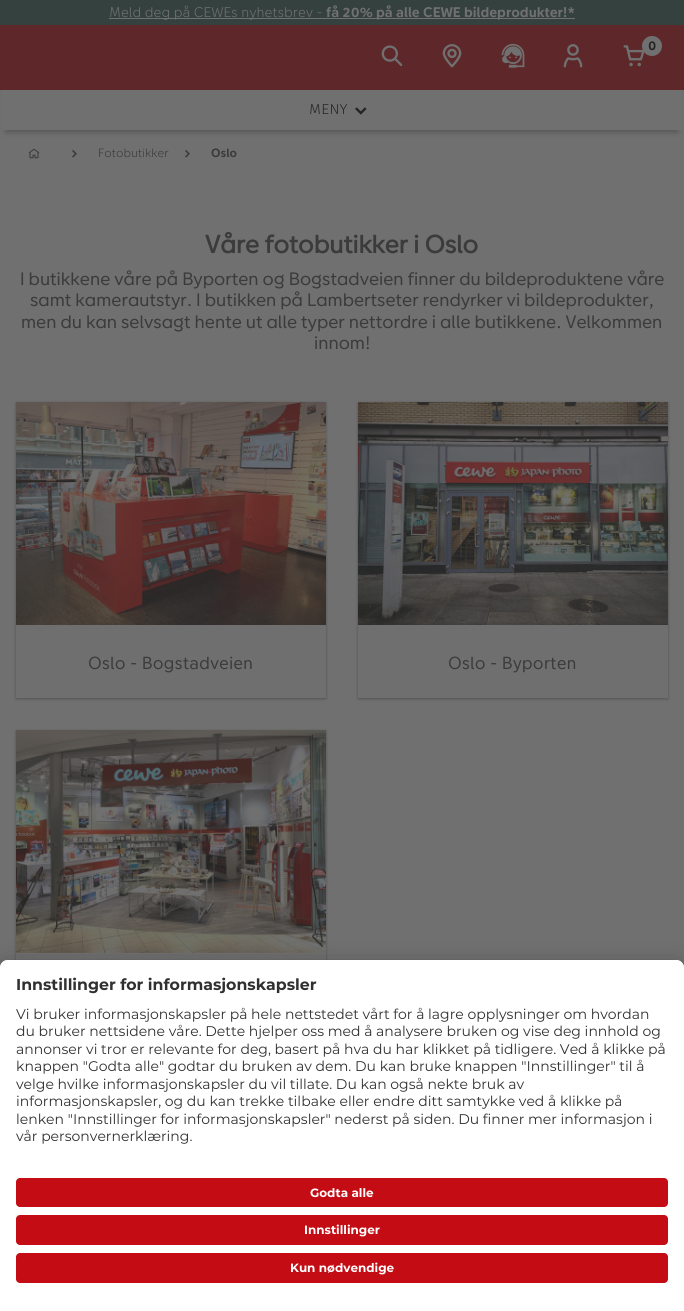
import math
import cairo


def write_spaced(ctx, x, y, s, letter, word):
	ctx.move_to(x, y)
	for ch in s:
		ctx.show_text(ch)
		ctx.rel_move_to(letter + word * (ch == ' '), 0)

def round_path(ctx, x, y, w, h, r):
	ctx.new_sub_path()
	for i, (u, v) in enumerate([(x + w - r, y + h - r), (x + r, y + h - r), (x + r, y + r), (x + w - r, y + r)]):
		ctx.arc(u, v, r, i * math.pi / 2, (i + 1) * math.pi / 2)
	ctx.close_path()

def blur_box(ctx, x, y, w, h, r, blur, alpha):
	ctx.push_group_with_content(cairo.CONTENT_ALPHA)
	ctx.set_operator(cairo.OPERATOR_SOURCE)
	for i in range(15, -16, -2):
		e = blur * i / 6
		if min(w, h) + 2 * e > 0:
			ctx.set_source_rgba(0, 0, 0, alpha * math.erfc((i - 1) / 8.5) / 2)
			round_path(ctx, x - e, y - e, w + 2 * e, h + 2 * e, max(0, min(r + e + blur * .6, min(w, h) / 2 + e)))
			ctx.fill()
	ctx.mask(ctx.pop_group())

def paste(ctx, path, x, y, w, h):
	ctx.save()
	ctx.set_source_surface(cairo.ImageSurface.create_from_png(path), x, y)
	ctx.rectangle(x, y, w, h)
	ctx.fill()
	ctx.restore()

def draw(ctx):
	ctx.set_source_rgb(0.439, 0.439, 0.439)
	ctx.paint()
	ctx.set_source_rgb(0.208, 0.255, 0.247)
	ctx.rectangle(0, 0, 684, 25)
	ctx.fill()
	ctx.set_source_rgb(0.439, 0.439, 0.439)
	ctx.rectangle(109, 18, 466, 1)
	ctx.fill()
	ctx.select_font_face('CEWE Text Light')
	ctx.set_font_size(14)
	ctx.move_to(109, 17)
	ctx.show_text('Meld deg på CEWEs nyhetsbrev -')
	ctx.select_font_face('CEWE Text', cairo.FONT_SLANT_NORMAL, cairo.FONT_WEIGHT_BOLD)
	ctx.move_to(326, 17)
	ctx.show_text('få 20% på alle CEWE bildeprodukter!*')
	ctx.set_source_rgb(0.329, 0.329, 0.329)
	blur_box(ctx, 6, 39, 672, 93, 0, 3, 1)
	ctx.set_source_rgb(0.369, 0.153, 0.165)
	ctx.rectangle(0, 25, 684, 65)
	ctx.fill()
	paste(ctx, 'media/1.png', 381, 45, 22, 22)
	paste(ctx, 'media/2.png', 442, 44, 20, 24)
	paste(ctx, 'media/3.png', 501, 43, 24, 25)
	paste(ctx, 'media/4.png', 563, 44, 20, 24)
	paste(ctx, 'media/5.png', 623, 45, 22, 22)
	ctx.set_source_rgb(0.439, 0.439, 0.439)
	ctx.arc(652, 46, 10, 0, 2 * math.pi)
	ctx.fill()
	ctx.set_font_size(13)
	ctx.set_source_rgb(0.141, 0.141, 0.141)
	ctx.move_to(648, 50)
	ctx.show_text('0')
	ctx.set_source_rgb(0.439, 0.439, 0.439)
	ctx.rectangle(2, 90, 680, 40)
	ctx.fill()
	ctx.select_font_face('CEWE Text Light')
	ctx.set_font_size(14)
	ctx.set_source_rgb(0.141, 0.141, 0.141)
	write_spaced(ctx, 309, 114, 'MENY', 0.5, 0)
	paste(ctx, 'media/6.png', 355, 107, 12, 8)
	paste(ctx, 'media/7.png', 28, 148, 12, 11)
	paste(ctx, 'media/8.png', 72, 149, 5, 9)
	ctx.set_font_size(12)
	ctx.set_source_rgb(0.231, 0.231, 0.231)
	ctx.move_to(98, 157)
	ctx.show_text('Fotobutikker')
	paste(ctx, 'media/8.png', 185, 149, 5, 9)
	ctx.select_font_face('CEWE Text', cairo.FONT_SLANT_NORMAL, cairo.FONT_WEIGHT_BOLD)
	ctx.move_to(211, 157)
	ctx.show_text('Oslo')
	ctx.select_font_face('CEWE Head', cairo.FONT_SLANT_NORMAL, cairo.FONT_WEIGHT_BOLD)
	ctx.set_font_size(25)
	ctx.move_to(205, 253)
	ctx.show_text('Våre fotobutikker i Oslo')
	ctx.select_font_face('CEWE Head')
	ctx.set_font_size(18)
	for x, y, s in [
		(20, 285, 'I butikkene våre på Byporten og Bogstadveien finner du bildeproduktene våre'),
		(30, 306, 'samt kamerautstyr. I butikken på Lambertseter rendyrker vi bildeprodukter,'),
		(21, 328, 'men du kan selvsagt hente ut alle typer nettordre i alle butikkene. Velkommen'),
		(314, 349, 'innom!'),
	]:
		ctx.move_to(x, y)
		ctx.show_text(s)
	ctx.set_source_rgb(0.141, 0.141, 0.141)
	blur_box(ctx, 16, 403, 310, 296, 0, 1.5, 0.4)
	ctx.set_source_rgb(0.435, 0.435, 0.435)
	ctx.rectangle(16, 625, 310, 73)
	ctx.fill()
	paste(ctx, 'media/9.png', 16, 402, 310, 223)
	ctx.select_font_face('CEWE Text')
	ctx.set_font_size(17.5)
	ctx.set_source_rgb(0.231, 0.231, 0.231)
	ctx.move_to(88, 669)
	ctx.show_text('Oslo - Bogstadveien')
	ctx.set_source_rgb(0.141, 0.141, 0.141)
	blur_box(ctx, 358, 403, 310, 296, 0, 1.5, 0.4)
	ctx.set_source_rgb(0.435, 0.435, 0.435)
	ctx.rectangle(358, 625, 310, 73)
	ctx.fill()
	paste(ctx, 'media/10.png', 358, 402, 310, 223)
	ctx.set_source_rgb(0.231, 0.231, 0.231)
	ctx.move_to(448, 669)
	ctx.show_text('Oslo - Byporten')
	ctx.set_source_rgb(0.141, 0.141, 0.141)
	blur_box(ctx, 16, 731, 310, 296, 0, 1.5, 0.4)
	ctx.set_source_rgb(0.435, 0.435, 0.435)
	ctx.rectangle(16, 953, 310, 7)
	ctx.fill()
	paste(ctx, 'media/11.png', 16, 730, 310, 223)
	ctx.set_source_rgb(0, 0, 0)
	blur_box(ctx, 0, 980, 684, 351, 8, 14, 0.3)
	blur_box(ctx, 0, 965, 684, 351, 8, 13, 0.22)
	ctx.set_source_rgb(1, 1, 1)
	ctx.new_path()
	ctx.move_to(8, 960)
	ctx.line_to(676, 960)
	ctx.curve_to(680.5, 960, 684, 963.5, 684, 968)
	ctx.line_to(684, 1311)
	ctx.line_to(0, 1311)
	ctx.line_to(0, 968)
	ctx.curve_to(0, 963.5, 3.5, 960, 8, 960)
	ctx.close_path()
	ctx.fill()
	ctx.new_path()
	ctx.move_to(8, 960)
	ctx.line_to(676, 960)
	ctx.curve_to(680.5, 960, 684, 963.5, 684, 968)
	ctx.line_to(684, 1166)
	ctx.line_to(0, 1166)
	ctx.line_to(0, 968)
	ctx.curve_to(0, 963.5, 3.5, 960, 8, 960)
	ctx.close_path()
	ctx.fill()
	ctx.select_font_face('Montserrat', cairo.FONT_SLANT_NORMAL, cairo.FONT_WEIGHT_BOLD)
	ctx.set_font_size(15.75)
	ctx.set_source_rgb(0.188, 0.188, 0.188)
	ctx.move_to(16, 990)
	ctx.show_text('Innstillinger for informasjonskapsler')
	ctx.select_font_face('Montserrat')
	ctx.set_font_size(14)
	for x, y, s in [
		(16, 1019, 'Vi bruker informasjonskapsler på hele nettstedet vårt for å lagre opplysninger om hvordan'),
		(16, 1036, 'du bruker nettsidene våre. Dette hjelper oss med å analysere bruken og vise deg innhold og'),
		(16, 1054, 'annonser vi tror er relevante for deg, basert på hva du har klikket på tidligere. Ved å klikke på'),
		(16, 1071, 'knappen "Godta alle" godtar du bruken av dem. Du kan bruke knappen "Innstillinger" til å'),
		(16, 1089, 'velge hvilke informasjonskapsler du vil tillate. Du kan også nekte bruk av'),
		(16, 1106, 'informasjonskapsler, og du kan trekke tilbake eller endre ditt samtykke ved å klikke på'),
		(16, 1124, 'lenken "Innstillinger for informasjonskapsler" nederst på siden. Du finner mer informasjon i'),
		(16, 1141, 'vår personvernerklæring.'),
	]:
		ctx.move_to(x, y)
		ctx.show_text(s)
	ctx.set_source_rgb(0.765, 0.047, 0.082)
	round_path(ctx, 16, 1178, 652, 29, 4)
	ctx.fill()
	ctx.select_font_face('Montserrat', cairo.FONT_SLANT_NORMAL, cairo.FONT_WEIGHT_BOLD)
	ctx.set_font_size(12)
	ctx.set_source_rgb(1, 1, 1)
	ctx.move_to(310, 1197)
	ctx.show_text('Godta alle')
	ctx.set_source_rgb(0.765, 0.047, 0.082)
	round_path(ctx, 16, 1215, 652, 30, 4)
	ctx.fill()
	ctx.set_source_rgb(1, 1, 1)
	ctx.move_to(304, 1234)
	ctx.show_text('Innstillinger')
	ctx.set_source_rgb(0.765, 0.047, 0.082)
	round_path(ctx, 16, 1253, 652, 30, 4)
	ctx.fill()
	ctx.set_source_rgb(1, 1, 1)
	ctx.move_to(290, 1272)
	ctx.show_text('Kun nødvendige')


surface = cairo.ImageSurface(cairo.FORMAT_RGB24, 684, 1311)
ctx = cairo.Context(surface)
options = cairo.FontOptions()
options.set_hint_metrics(cairo.HINT_METRICS_OFF)
options.set_hint_style(cairo.HINT_STYLE_NONE)
ctx.set_font_options(options)
ctx.set_miter_limit(4)
draw(ctx)
surface.write_to_png('image.png')
